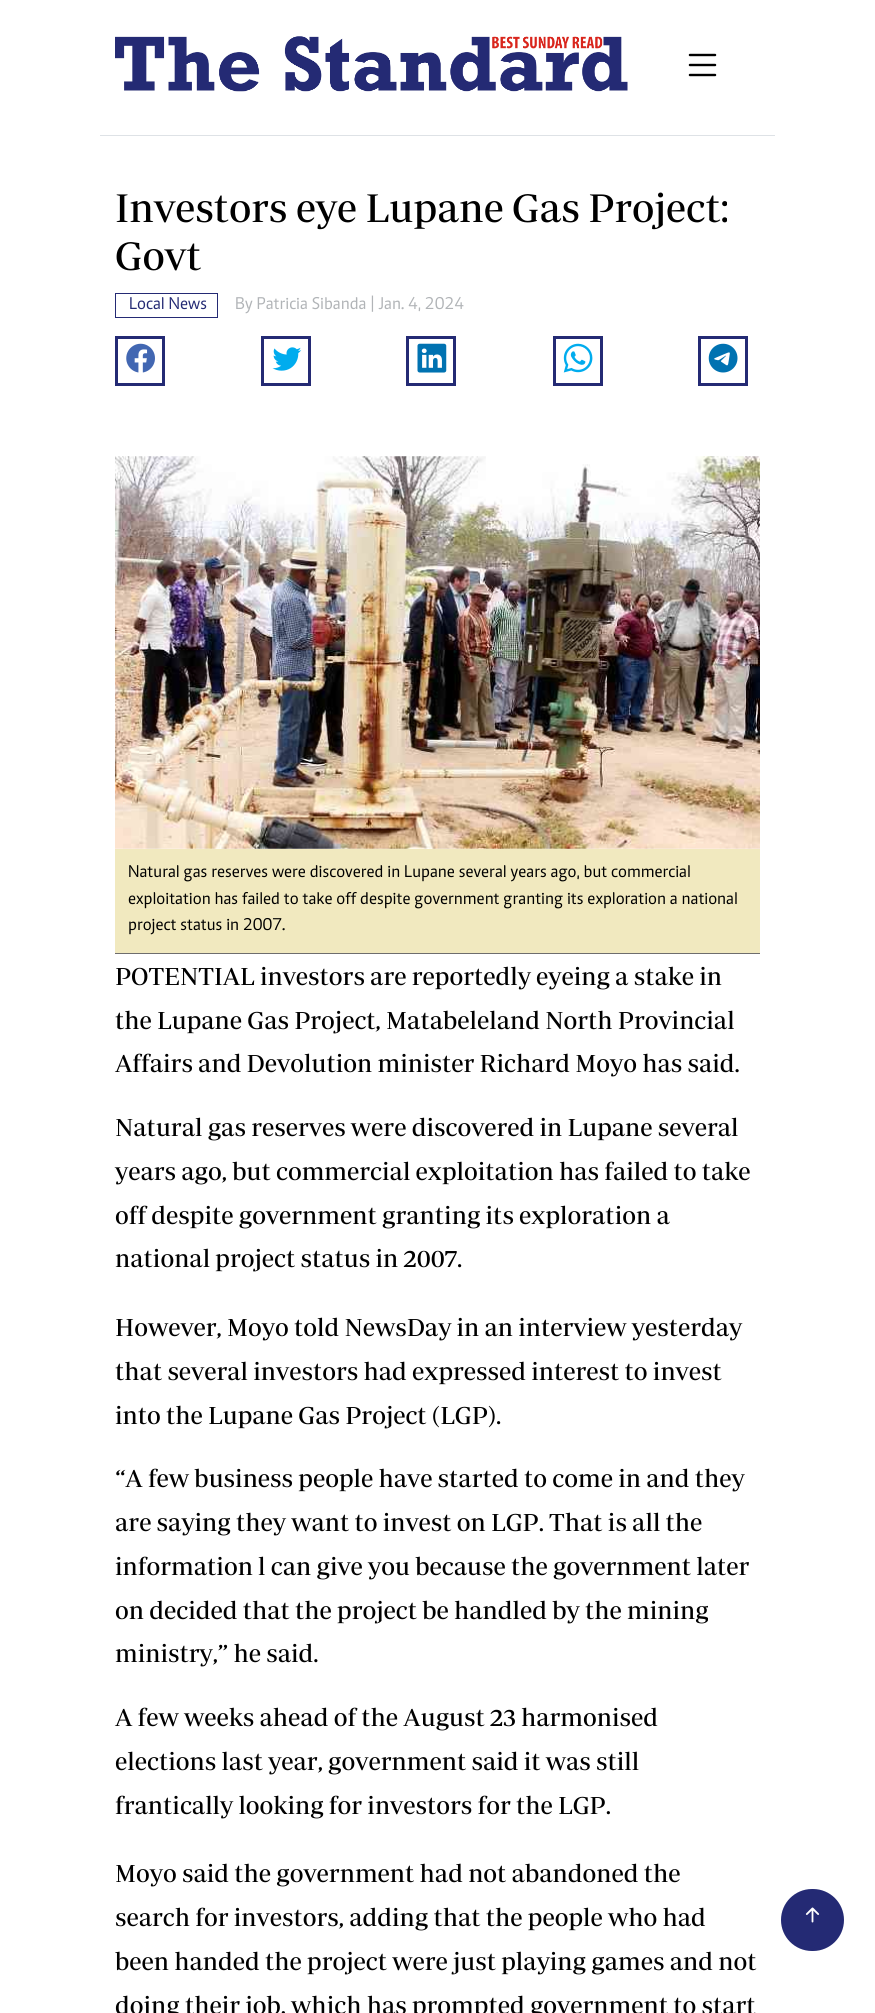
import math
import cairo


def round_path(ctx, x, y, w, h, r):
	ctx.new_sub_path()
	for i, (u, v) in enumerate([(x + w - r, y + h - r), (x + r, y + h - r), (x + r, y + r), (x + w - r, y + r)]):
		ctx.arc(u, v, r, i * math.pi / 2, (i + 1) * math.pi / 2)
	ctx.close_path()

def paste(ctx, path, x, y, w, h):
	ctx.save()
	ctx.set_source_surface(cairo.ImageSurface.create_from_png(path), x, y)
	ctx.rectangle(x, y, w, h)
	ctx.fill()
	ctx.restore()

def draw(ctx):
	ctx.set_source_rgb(1, 1, 1)
	ctx.paint()
	ctx.set_source_rgb(0.871, 0.886, 0.902)
	ctx.rectangle(100, 135, 675, 1)
	ctx.fill()
	paste(ctx, 'media/1.png', 115, 36, 513, 56)
	paste(ctx, 'media/2.png', 688, 53, 29, 24)
	ctx.select_font_face('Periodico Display')
	ctx.set_font_size(40.6)
	ctx.set_source_rgb(0, 0, 0)
	ctx.move_to(115, 222)
	ctx.show_text('Investors eye Lupane Gas Project:')
	ctx.move_to(115, 270)
	ctx.show_text('Govt')
	ctx.rectangle(115.5, 293.5, 102, 24)
	ctx.set_source_rgb(0.141, 0.165, 0.455)
	ctx.set_line_width(1)
	ctx.stroke()
	ctx.select_font_face('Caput')
	ctx.set_font_size(17.5)
	ctx.move_to(129, 309)
	ctx.show_text('Local News')
	ctx.set_source_rgb(0.694, 0.706, 0.718)
	ctx.move_to(235, 309)
	ctx.show_text('By Patricia Sibanda | Jan. 4, 2024')
	ctx.rectangle(116.5, 337.5, 47, 47)
	ctx.set_source_rgb(0.141, 0.165, 0.455)
	ctx.set_line_width(3)
	ctx.stroke()
	paste(ctx, 'media/3.png', 126, 343, 29, 30)
	ctx.rectangle(262.5, 337.5, 47, 47)
	ctx.stroke()
	paste(ctx, 'media/4.png', 272, 347, 30, 24)
	ctx.rectangle(407.5, 337.5, 47, 47)
	ctx.stroke()
	paste(ctx, 'media/5.png', 417, 343, 30, 30)
	ctx.rectangle(554.5, 337.5, 47, 47)
	ctx.stroke()
	paste(ctx, 'media/6.png', 563, 343, 30, 30)
	ctx.rectangle(699.5, 337.5, 47, 47)
	ctx.stroke()
	paste(ctx, 'media/7.png', 708, 343, 30, 30)
	paste(ctx, 'media/8.png', 115, 456, 645, 393)
	ctx.set_source_rgb(0.945, 0.914, 0.749)
	ctx.rectangle(115, 849, 645, 104)
	ctx.fill()
	ctx.set_source_rgb(0.431, 0.427, 0.427)
	ctx.rectangle(115, 953, 645, 1)
	ctx.fill()
	ctx.set_source_rgb(0, 0, 0)
	for x, y, s in [
		(128, 877, 'Natural gas reserves were discovered in Lupane several years ago, but commercial'),
		(128, 904, 'exploitation has failed to take off despite government granting its exploration a national'),
		(128, 930, 'project status in 2007.'),
	]:
		ctx.move_to(x, y)
		ctx.show_text(s)
	ctx.select_font_face('Periodico Display')
	ctx.set_font_size(25)
	for x, y, s in [
		(115, 985, 'POTENTIAL investors are reportedly eyeing a stake in'),
		(115, 1029, 'the Lupane Gas Project, Matabeleland North Provincial'),
		(115, 1072, 'Affairs and Devolution minister Richard Moyo has said.'),
		(115, 1136, 'Natural gas reserves were discovered in Lupane several'),
		(115, 1180, 'years ago, but commercial exploitation has failed to take'),
		(115, 1224, 'off despite government granting its exploration a'),
		(115, 1267, 'national project status in 2007.'),
		(115, 1336, 'However, Moyo told NewsDay in an interview yesterday'),
		(115, 1380, 'that several investors had expressed interest to invest'),
		(115, 1424, 'into the Lupane Gas Project (LGP).'),
		(115, 1487, '“A few business people have started to come in and they'),
		(115, 1531, 'are saying they want to invest on LGP. That is all the'),
		(115, 1575, 'information l can give you because the government later'),
		(115, 1619, 'on decided that the project be handled by the mining'),
		(115, 1662, 'ministry,” he said.'),
		(115, 1726, 'A few weeks ahead of the August 23 harmonised'),
		(115, 1770, 'elections last year, government said it was still'),
		(115, 1814, 'frantically looking for investors for the LGP.'),
		(115, 1882, 'Moyo said the government had not abandoned the'),
		(115, 1926, 'search for investors, adding that the people who had'),
		(115, 1970, 'been handed the project were just playing games and not'),
		(115, 2014, 'doing their job, which has prompted government to start'),
	]:
		ctx.move_to(x, y)
		ctx.show_text(s)
	ctx.set_source_rgb(0.141, 0.165, 0.455)
	round_path(ctx, 781, 1889, 63, 62, 31)
	ctx.fill()
	paste(ctx, 'media/9.png', 805, 1907, 15, 16)


surface = cairo.ImageSurface(cairo.FORMAT_RGB24, 875, 2013)
ctx = cairo.Context(surface)
options = cairo.FontOptions()
options.set_hint_metrics(cairo.HINT_METRICS_OFF)
options.set_hint_style(cairo.HINT_STYLE_NONE)
ctx.set_font_options(options)
ctx.set_miter_limit(4)
draw(ctx)
surface.write_to_png('image.png')
